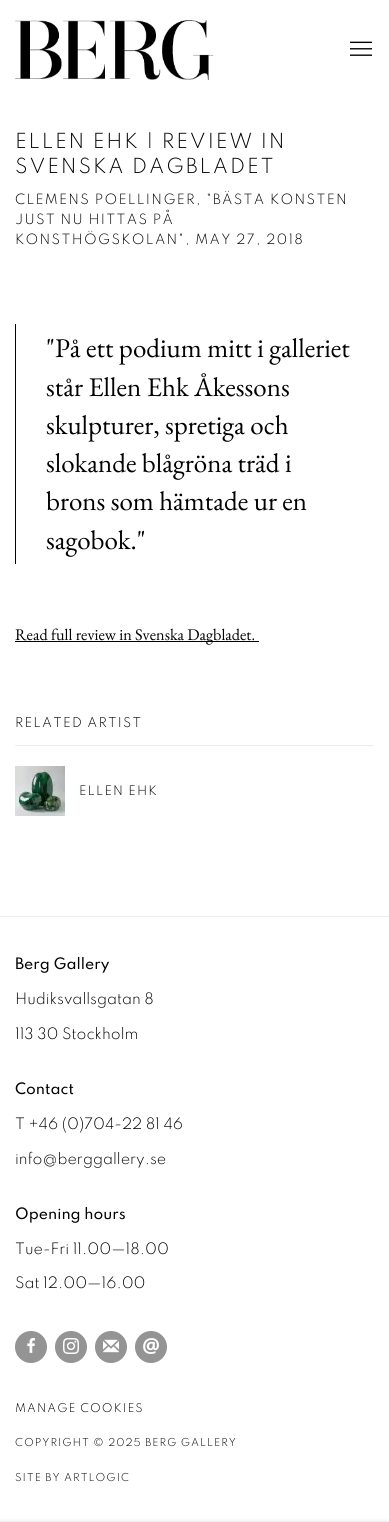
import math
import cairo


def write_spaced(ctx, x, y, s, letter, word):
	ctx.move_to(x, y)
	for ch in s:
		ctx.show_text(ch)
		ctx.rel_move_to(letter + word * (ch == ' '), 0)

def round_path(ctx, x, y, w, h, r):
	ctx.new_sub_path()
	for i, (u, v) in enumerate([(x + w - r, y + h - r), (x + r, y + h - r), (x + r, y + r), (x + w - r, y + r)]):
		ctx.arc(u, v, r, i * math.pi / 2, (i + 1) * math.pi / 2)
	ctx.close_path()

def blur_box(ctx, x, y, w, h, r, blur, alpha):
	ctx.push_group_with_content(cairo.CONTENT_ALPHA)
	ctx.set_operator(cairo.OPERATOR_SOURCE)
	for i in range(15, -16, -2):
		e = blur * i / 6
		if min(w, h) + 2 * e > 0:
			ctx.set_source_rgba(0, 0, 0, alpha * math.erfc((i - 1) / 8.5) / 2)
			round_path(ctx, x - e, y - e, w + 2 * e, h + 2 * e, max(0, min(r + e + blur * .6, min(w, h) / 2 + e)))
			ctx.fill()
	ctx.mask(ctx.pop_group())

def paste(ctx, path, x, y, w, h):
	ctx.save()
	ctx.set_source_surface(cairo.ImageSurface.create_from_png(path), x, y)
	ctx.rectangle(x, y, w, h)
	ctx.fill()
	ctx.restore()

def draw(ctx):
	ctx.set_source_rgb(1, 1, 1)
	ctx.paint()
	paste(ctx, 'media/1.png', 15, 20, 199, 60)
	paste(ctx, 'media/2.png', 350, 41, 22, 15)
	ctx.select_font_face('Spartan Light')
	ctx.set_font_size(21.4)
	ctx.set_source_rgb(0, 0, 0)
	write_spaced(ctx, 15, 148, 'ELLEN EHK | REVIEW IN', 1.9, 0)
	write_spaced(ctx, 15, 173, 'SVENSKA DAGBLADET', 1.9, 0)
	ctx.set_font_size(14.6)
	for x, y, s in [
		(15, 204, 'CLEMENS POELLINGER, "BÄSTA KONSTEN'),
		(15, 224, 'JUST NU HITTAS PÅ'),
		(15, 244, 'KONSTHÖGSKOLAN", MAY 27, 2018'),
	]:
		write_spaced(ctx, x, y, s, 1.3, 0)
	ctx.rectangle(15, 324, 1, 240)
	ctx.fill()
	ctx.select_font_face('EB Garamond')
	ctx.set_font_size(27)
	for x, y, s in [
		(46, 357, '"På ett podium mitt i galleriet'),
		(46, 396, 'står Ellen Ehk Åkessons'),
		(46, 434, 'skulpturer, spretiga och'),
		(46, 472, 'slokande blågröna träd i'),
		(46, 510, 'brons som hämtade ur en'),
		(46, 549, 'sagobok."'),
	]:
		ctx.move_to(x, y)
		ctx.show_text(s)
	ctx.rectangle(15, 641, 244, 1)
	ctx.fill()
	ctx.set_font_size(16.25)
	ctx.move_to(15, 640)
	ctx.show_text('Read full review in Svenska Dagbladet.')
	ctx.set_source_rgb(0.922, 0.922, 0.922)
	ctx.rectangle(15, 745, 359, 1)
	ctx.fill()
	ctx.select_font_face('Spartan Light')
	ctx.set_font_size(14)
	ctx.set_source_rgb(0, 0, 0)
	write_spaced(ctx, 15, 727, 'RELATED ARTIST', 1.25, 0)
	paste(ctx, 'media/3.png', 15, 766, 50, 50)
	ctx.set_font_size(13.5)
	write_spaced(ctx, 79, 795, 'ELLEN EHK', 1.25, 0)
	ctx.set_source_rgb(0.922, 0.922, 0.922)
	ctx.rectangle(0, 916, 389, 1)
	ctx.fill()
	ctx.select_font_face('Spartan Medium')
	ctx.set_font_size(16.25)
	ctx.set_source_rgb(0, 0, 0)
	ctx.move_to(15, 969)
	ctx.show_text('Berg Gallery')
	ctx.select_font_face('Spartan Light')
	ctx.move_to(15, 1004)
	ctx.show_text('Hudiksvallsgatan 8')
	ctx.move_to(15, 1039)
	ctx.show_text('113 30 Stockholm')
	ctx.select_font_face('Spartan Medium')
	ctx.move_to(15, 1094)
	ctx.show_text('Contact')
	ctx.select_font_face('Spartan Light')
	ctx.move_to(15, 1129)
	ctx.show_text('T +46 (0)704-22 81 46')
	ctx.move_to(15, 1164)
	ctx.show_text('info@berggallery.se')
	ctx.select_font_face('Spartan Medium')
	ctx.move_to(15, 1219)
	ctx.show_text('Opening hours')
	ctx.select_font_face('Spartan Light')
	ctx.move_to(15, 1254)
	ctx.show_text('Tue-Fri 11.00—18.00')
	ctx.move_to(15, 1288)
	ctx.show_text('Sat 12.00—16.00')
	ctx.set_source_rgb(0.58, 0.58, 0.58)
	ctx.new_path()
	ctx.arc(31, 1347, 16, 0, 2 * math.pi)
	ctx.fill()
	paste(ctx, 'media/4.png', 27, 1338, 8, 15)
	ctx.arc(71, 1347, 16, 0, 2 * math.pi)
	ctx.fill()
	paste(ctx, 'media/5.png', 63, 1338, 16, 16)
	ctx.arc(111, 1347, 16, 0, 2 * math.pi)
	ctx.fill()
	paste(ctx, 'media/6.png', 103, 1339, 16, 14)
	ctx.arc(151, 1347, 16, 0, 2 * math.pi)
	ctx.fill()
	paste(ctx, 'media/7.png', 143, 1338, 16, 16)
	ctx.set_font_size(12.4)
	ctx.set_source_rgb(0, 0, 0)
	write_spaced(ctx, 15, 1412, 'MANAGE COOKIES', 1.1, 0)
	ctx.set_font_size(11.25)
	write_spaced(ctx, 15, 1446, 'COPYRIGHT © 2025 BERG GALLERY', 1, 0)
	write_spaced(ctx, 15, 1481, 'SITE BY ARTLOGIC', 1, 0)
	ctx.set_source_rgb(0, 0, 0)
	blur_box(ctx, 0, 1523, 389, 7, 0, 2.5, 0.23)


surface = cairo.ImageSurface(cairo.FORMAT_RGB24, 389, 1522)
ctx = cairo.Context(surface)
options = cairo.FontOptions()
options.set_hint_metrics(cairo.HINT_METRICS_OFF)
options.set_hint_style(cairo.HINT_STYLE_NONE)
ctx.set_font_options(options)
ctx.set_miter_limit(4)
draw(ctx)
surface.write_to_png('image.png')
